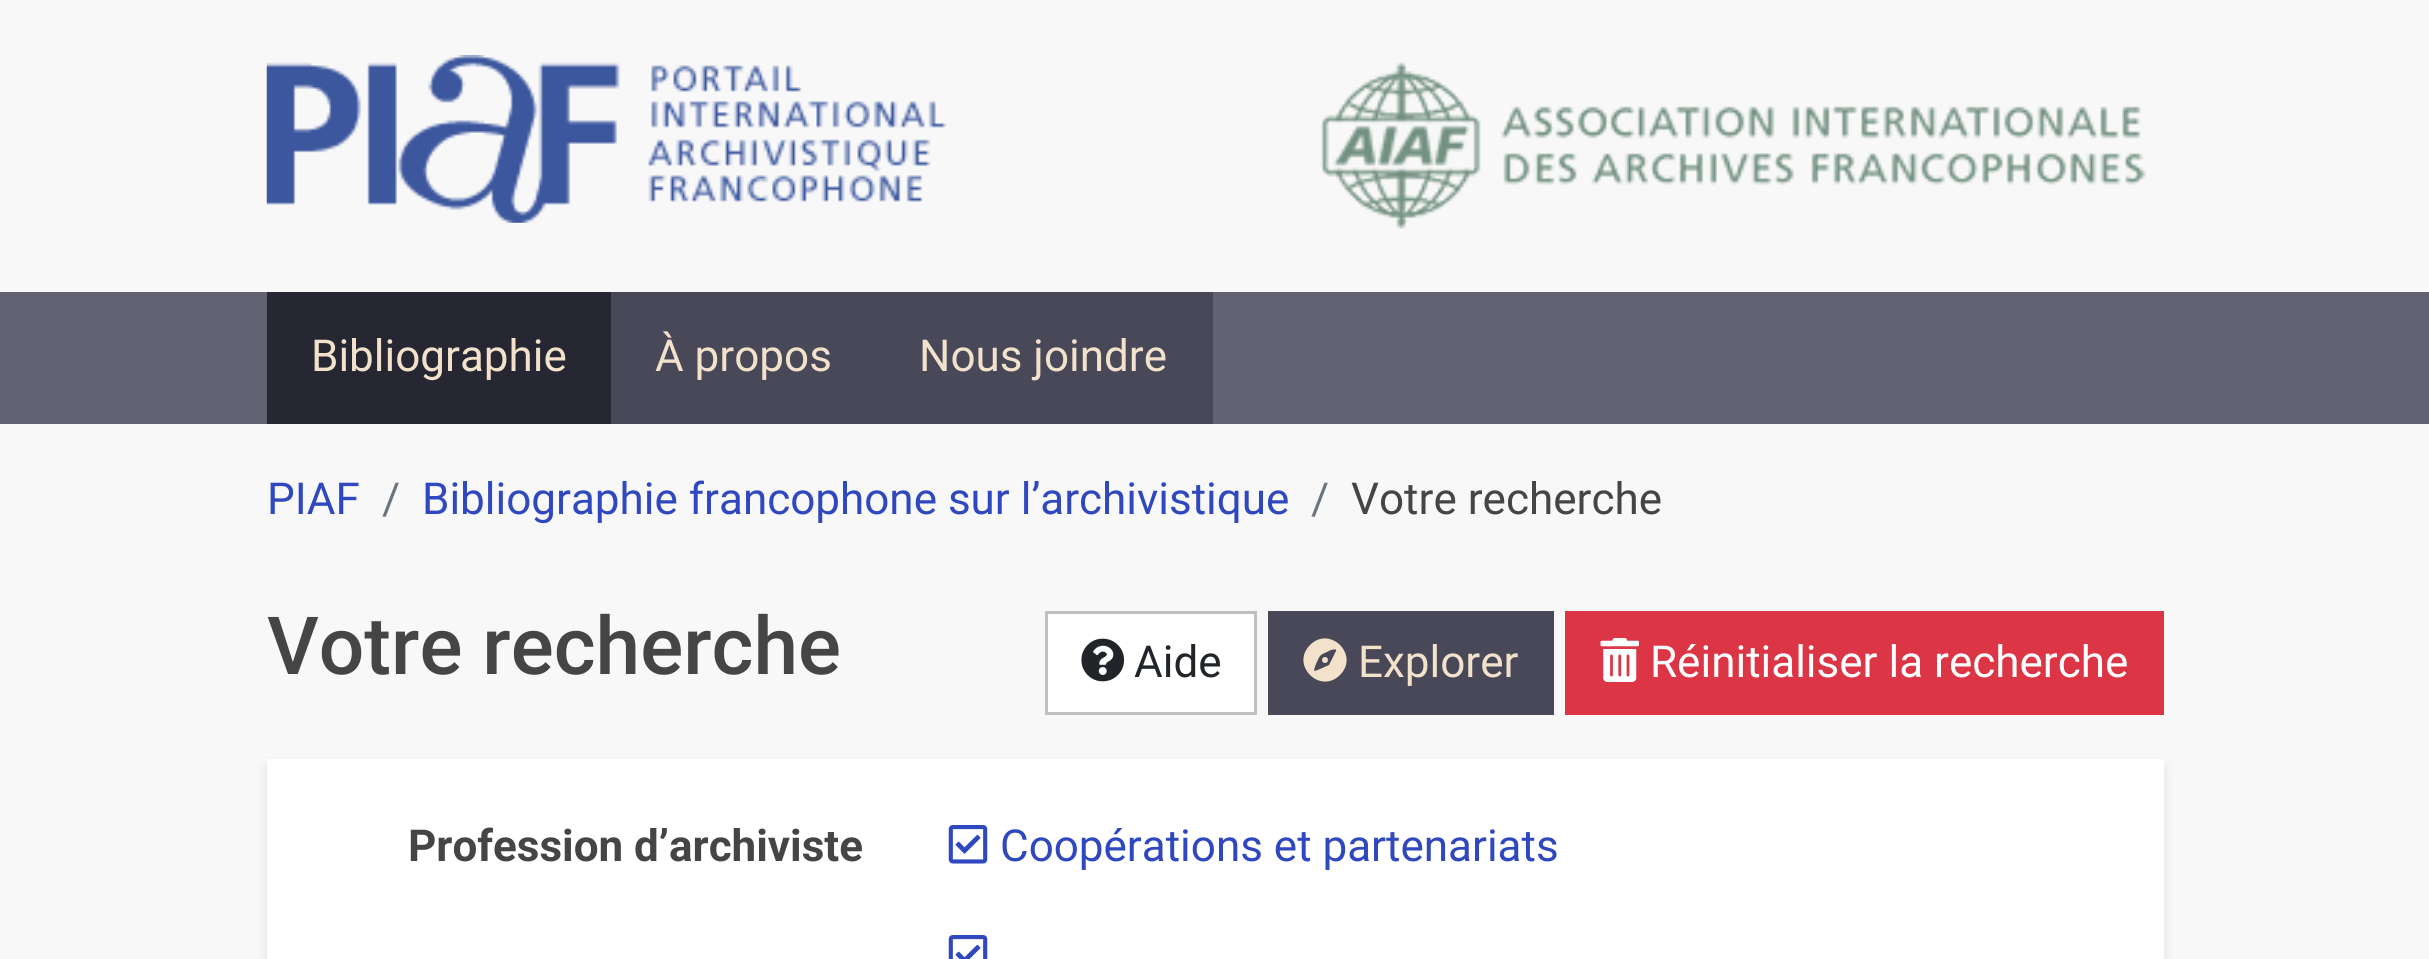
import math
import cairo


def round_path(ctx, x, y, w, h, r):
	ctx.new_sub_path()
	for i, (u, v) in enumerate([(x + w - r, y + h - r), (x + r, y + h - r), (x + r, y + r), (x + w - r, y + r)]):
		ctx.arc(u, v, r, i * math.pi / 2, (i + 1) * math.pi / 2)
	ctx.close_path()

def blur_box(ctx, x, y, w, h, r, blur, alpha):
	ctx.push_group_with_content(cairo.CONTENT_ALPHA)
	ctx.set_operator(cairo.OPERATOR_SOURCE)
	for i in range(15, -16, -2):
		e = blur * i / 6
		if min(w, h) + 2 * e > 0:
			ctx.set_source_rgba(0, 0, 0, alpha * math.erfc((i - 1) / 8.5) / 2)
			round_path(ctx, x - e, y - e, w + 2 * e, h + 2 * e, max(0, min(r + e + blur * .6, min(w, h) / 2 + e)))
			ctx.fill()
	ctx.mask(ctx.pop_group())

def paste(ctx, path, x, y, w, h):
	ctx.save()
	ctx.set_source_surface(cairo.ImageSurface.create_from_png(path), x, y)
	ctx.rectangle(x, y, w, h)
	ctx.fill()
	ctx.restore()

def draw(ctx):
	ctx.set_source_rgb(0.969, 0.969, 0.969)
	ctx.paint()
	paste(ctx, 'media/1.png', 266, 55, 680, 168)
	paste(ctx, 'media/2.png', 1320, 62, 826, 167)
	ctx.set_source_rgb(0.384, 0.384, 0.447)
	ctx.rectangle(0, 292, 2429, 132)
	ctx.fill()
	ctx.set_source_rgb(0.153, 0.153, 0.2)
	ctx.rectangle(267, 292, 344, 132)
	ctx.fill()
	ctx.select_font_face('Roboto')
	ctx.set_font_size(44)
	ctx.set_source_rgb(0.949, 0.882, 0.796)
	ctx.move_to(311, 371)
	ctx.show_text('Bibliographie')
	ctx.set_source_rgb(0.282, 0.282, 0.345)
	ctx.rectangle(611, 292, 602, 132)
	ctx.fill()
	ctx.set_source_rgb(0.949, 0.882, 0.796)
	ctx.move_to(655, 371)
	ctx.show_text('À propos')
	ctx.move_to(919, 371)
	ctx.show_text('Nous joindre')
	ctx.set_source_rgb(0.188, 0.282, 0.749)
	ctx.move_to(267, 514)
	ctx.show_text('PIAF')
	ctx.set_source_rgb(0.424, 0.459, 0.49)
	ctx.move_to(382, 514)
	ctx.show_text('/')
	ctx.set_source_rgb(0.188, 0.282, 0.749)
	ctx.move_to(422, 514)
	ctx.show_text('Bibliographie francophone sur l’archivistique')
	ctx.set_source_rgb(0.424, 0.459, 0.49)
	ctx.move_to(1311, 514)
	ctx.show_text('/')
	ctx.set_source_rgb(0.271, 0.271, 0.271)
	ctx.move_to(1351, 514)
	ctx.show_text('Votre recherche')
	ctx.select_font_face('Roboto Medium')
	ctx.set_font_size(80.25)
	ctx.move_to(267, 674)
	ctx.show_text('Votre recherche')
	ctx.set_source_rgb(1, 1, 1)
	ctx.rectangle(1046.5, 612.5, 209, 101)
	ctx.fill_preserve()
	ctx.set_source_rgb(0.749, 0.749, 0.749)
	ctx.set_line_width(3)
	ctx.stroke()
	paste(ctx, 'media/3.png', 1081, 638, 44, 44)
	ctx.select_font_face('Roboto')
	ctx.set_font_size(44)
	ctx.set_source_rgb(0.129, 0.145, 0.161)
	ctx.move_to(1134, 677)
	ctx.show_text('Aide')
	ctx.set_source_rgb(0.282, 0.282, 0.345)
	ctx.rectangle(1268, 611, 286, 104)
	ctx.fill()
	ctx.set_source_rgb(0.949, 0.882, 0.796)
	ctx.new_path()
	ctx.move_to(1322, 660)
	ctx.curve_to(1322, 656, 1328, 656, 1328, 660)
	ctx.curve_to(1328, 664, 1322, 664, 1322, 660)
	ctx.close_path()
	ctx.move_to(1310, 645)
	ctx.curve_to(1330, 625, 1360, 655, 1340, 675)
	ctx.curve_to(1320, 695, 1290, 665, 1310, 645)
	ctx.close_path()
	ctx.move_to(1336, 651)
	ctx.curve_to(1337, 648, 1332, 650, 1331, 650)
	ctx.curve_to(1319, 656, 1321, 653, 1316, 664)
	ctx.curve_to(1313, 672, 1313, 672, 1320, 669)
	ctx.line_to(1329, 665)
	ctx.close_path()
	ctx.fill()
	ctx.move_to(1358, 677)
	ctx.show_text('Explorer')
	ctx.set_source_rgb(0.863, 0.208, 0.271)
	ctx.rectangle(1565, 611, 599, 104)
	ctx.fill()
	paste(ctx, 'media/4.png', 1600, 638, 39, 44)
	ctx.set_source_rgb(1, 1, 1)
	ctx.move_to(1650, 677)
	ctx.show_text('Réinitialiser la recherche')
	ctx.set_source_rgb(0, 0, 0)
	blur_box(ctx, 267, 767, 1897, 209, 0, 5.5, 0.1)
	ctx.set_source_rgb(1, 1, 1)
	ctx.rectangle(267, 759, 1897, 200)
	ctx.fill()
	ctx.select_font_face('Roboto', cairo.FONT_SLANT_NORMAL, cairo.FONT_WEIGHT_BOLD)
	ctx.set_source_rgb(0.271, 0.271, 0.271)
	ctx.move_to(408, 861)
	ctx.show_text('Profession d’archiviste')
	paste(ctx, 'media/5.png', 948, 825, 40, 39)
	ctx.select_font_face('Roboto')
	ctx.set_source_rgb(0.188, 0.282, 0.749)
	ctx.move_to(1000, 861)
	ctx.show_text('Coopérations et partenariats')
	paste(ctx, 'media/6.png', 948, 935, 40, 24)


surface = cairo.ImageSurface(cairo.FORMAT_RGB24, 2429, 959)
ctx = cairo.Context(surface)
options = cairo.FontOptions()
options.set_hint_metrics(cairo.HINT_METRICS_OFF)
options.set_hint_style(cairo.HINT_STYLE_NONE)
ctx.set_font_options(options)
ctx.set_miter_limit(4)
draw(ctx)
surface.write_to_png('image.png')
